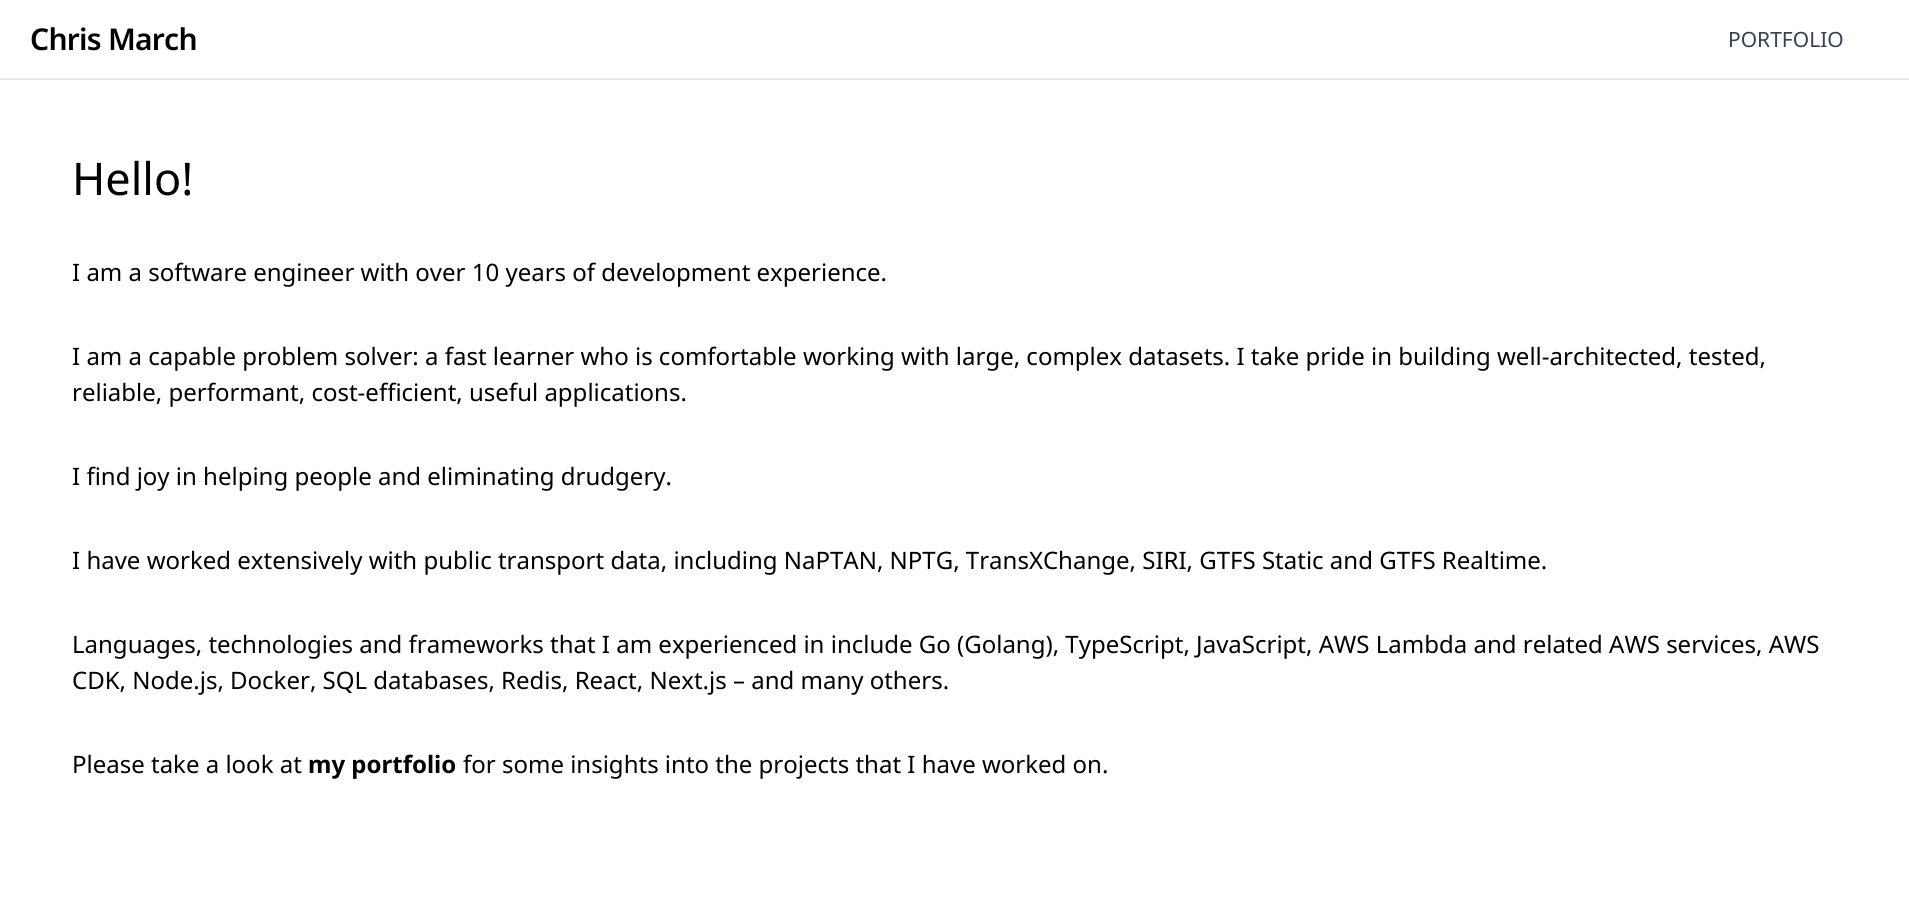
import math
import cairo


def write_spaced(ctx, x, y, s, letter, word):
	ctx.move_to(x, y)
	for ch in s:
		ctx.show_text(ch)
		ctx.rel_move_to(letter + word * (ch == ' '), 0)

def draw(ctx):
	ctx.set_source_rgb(1, 1, 1)
	ctx.paint()
	ctx.set_source_rgb(0.898, 0.906, 0.922)
	ctx.rectangle(0, 78, 1909, 2)
	ctx.fill()
	ctx.select_font_face('Noto Sans SemiBold')
	ctx.set_font_size(30)
	ctx.set_source_rgb(0, 0, 0)
	write_spaced(ctx, 30, 50, 'Chris March', -0.75, 0)
	ctx.select_font_face('Noto Sans')
	ctx.set_font_size(21)
	ctx.set_source_rgb(0.216, 0.255, 0.318)
	ctx.move_to(1728, 47)
	ctx.show_text('PORTFOLIO')
	ctx.set_font_size(45)
	ctx.set_source_rgb(0, 0, 0)
	ctx.move_to(72, 195)
	ctx.show_text('Hello!')
	ctx.set_font_size(24)
	for x, y, s in [
		(72, 281, 'I am a software engineer with over 10 years of development experience.'),
		(72, 365, 'I am a capable problem solver: a fast learner who is comfortable working with large, complex datasets. I take pride in building well-architected, tested,'),
		(72, 401, 'reliable, performant, cost-efficient, useful applications.'),
		(72, 485, 'I find joy in helping people and eliminating drudgery.'),
		(72, 569, 'I have worked extensively with public transport data, including NaPTAN, NPTG, TransXChange, SIRI, GTFS Static and GTFS Realtime.'),
		(72, 653, 'Languages, technologies and frameworks that I am experienced in include Go (Golang), TypeScript, JavaScript, AWS Lambda and related AWS services, AWS'),
		(72, 689, 'CDK, Node.js, Docker, SQL databases, Redis, React, Next.js – and many others.'),
		(72, 773, 'Please take a look at'),
	]:
		ctx.move_to(x, y)
		ctx.show_text(s)
	ctx.select_font_face('Noto Sans', cairo.FONT_SLANT_NORMAL, cairo.FONT_WEIGHT_BOLD)
	ctx.move_to(308, 773)
	ctx.show_text('my portfolio')
	ctx.select_font_face('Noto Sans')
	ctx.move_to(463, 773)
	ctx.show_text('for some insights into the projects that I have worked on.')


surface = cairo.ImageSurface(cairo.FORMAT_RGB24, 1909, 906)
ctx = cairo.Context(surface)
options = cairo.FontOptions()
options.set_hint_metrics(cairo.HINT_METRICS_OFF)
options.set_hint_style(cairo.HINT_STYLE_NONE)
ctx.set_font_options(options)
ctx.set_miter_limit(4)
draw(ctx)
surface.write_to_png('image.png')
